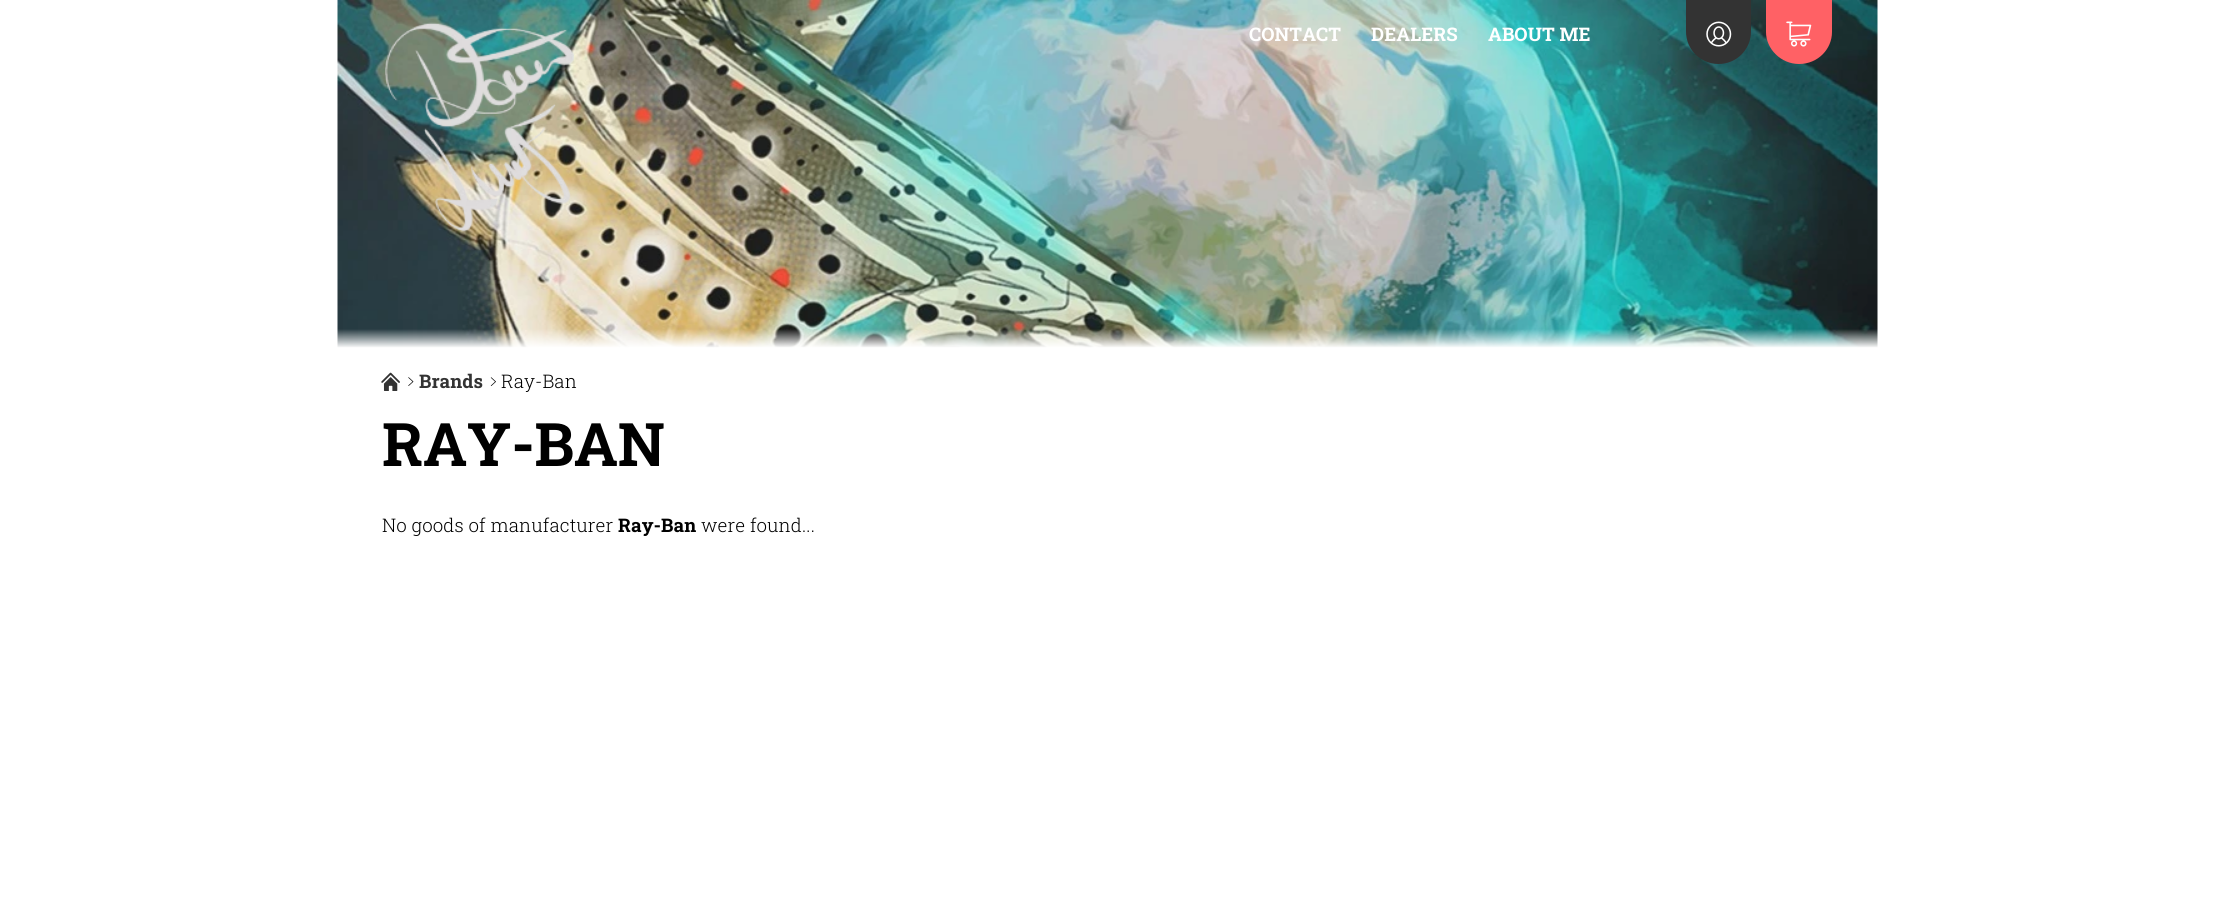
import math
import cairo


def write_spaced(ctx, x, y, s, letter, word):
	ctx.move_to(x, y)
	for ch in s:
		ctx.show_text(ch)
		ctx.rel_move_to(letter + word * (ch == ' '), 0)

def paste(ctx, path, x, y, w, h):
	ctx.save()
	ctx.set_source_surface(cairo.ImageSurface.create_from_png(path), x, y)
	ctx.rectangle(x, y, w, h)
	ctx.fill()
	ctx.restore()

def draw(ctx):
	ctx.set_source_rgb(1, 1, 1)
	ctx.paint()
	paste(ctx, 'media/1.png', 337, 0, 1541, 348)
	paste(ctx, 'media/2.png', 385, 22, 189, 210)
	ctx.select_font_face('Roboto Slab', cairo.FONT_SLANT_NORMAL, cairo.FONT_WEIGHT_BOLD)
	ctx.set_font_size(18.75)
	ctx.set_source_rgb(1, 1, 1)
	for x, y, s in [
		(1249, 41, 'CONTACT'),
		(1371, 41, 'DEALERS'),
		(1488, 41, 'ABOUT ME'),
	]:
		write_spaced(ctx, x, y, s, 0.1, 0)
	ctx.set_source_rgb(0.2, 0.2, 0.2)
	ctx.new_path()
	ctx.move_to(1686, 0)
	ctx.line_to(1751, 0)
	ctx.line_to(1751, 31.5)
	ctx.curve_to(1751, 49.5, 1736.5, 64, 1718.5, 64)
	ctx.curve_to(1700.5, 64, 1686, 49.5, 1686, 31.5)
	ctx.close_path()
	ctx.fill()
	paste(ctx, 'media/3.png', 1706, 21, 26, 26)
	ctx.set_source_rgb(1, 0.38, 0.396)
	ctx.new_path()
	ctx.move_to(1766, 0)
	ctx.line_to(1832, 0)
	ctx.line_to(1832, 32)
	ctx.curve_to(1832, 49, 1818, 64, 1799, 64)
	ctx.curve_to(1781, 64, 1766, 49, 1766, 32)
	ctx.close_path()
	ctx.fill()
	paste(ctx, 'media/4.png', 1786, 21, 26, 26)
	gradient = cairo.LinearGradient(1107, 329, 1107, 348)
	gradient.add_color_stop_rgba(0, 1, 1, 1, 0)
	gradient.add_color_stop_rgba(1, 1, 1, 1, 1)
	ctx.set_source(gradient)
	ctx.rectangle(337, 329, 1541, 19)
	ctx.fill()
	paste(ctx, 'media/5.png', 381, 372, 19, 19)
	paste(ctx, 'media/6.png', 408, 377, 6, 9)
	ctx.set_source_rgb(0.2, 0.2, 0.2)
	write_spaced(ctx, 419, 388, 'Brands', 0.1, 0)
	paste(ctx, 'media/7.png', 490, 377, 6, 9)
	ctx.select_font_face('Roboto Slab Light')
	ctx.set_source_rgb(0, 0, 0)
	write_spaced(ctx, 501, 388, 'Ray-Ban', 0.1, 0)
	ctx.select_font_face('Roboto Slab', cairo.FONT_SLANT_NORMAL, cairo.FONT_WEIGHT_BOLD)
	ctx.set_font_size(60)
	write_spaced(ctx, 382, 466, 'RAY-BAN', -0.25, 0)
	ctx.select_font_face('Roboto Slab Light')
	ctx.set_font_size(18.75)
	write_spaced(ctx, 382, 532, 'No goods of manufacturer', 0.1, 0)
	ctx.select_font_face('Roboto Slab', cairo.FONT_SLANT_NORMAL, cairo.FONT_WEIGHT_BOLD)
	write_spaced(ctx, 618, 532, 'Ray-Ban', 0.1, 0)
	ctx.select_font_face('Roboto Slab Light')
	write_spaced(ctx, 701, 532, 'were found...', 0.1, 0)


surface = cairo.ImageSurface(cairo.FORMAT_RGB24, 2213, 916)
ctx = cairo.Context(surface)
options = cairo.FontOptions()
options.set_hint_metrics(cairo.HINT_METRICS_OFF)
options.set_hint_style(cairo.HINT_STYLE_NONE)
ctx.set_font_options(options)
ctx.set_miter_limit(4)
draw(ctx)
surface.write_to_png('image.png')
